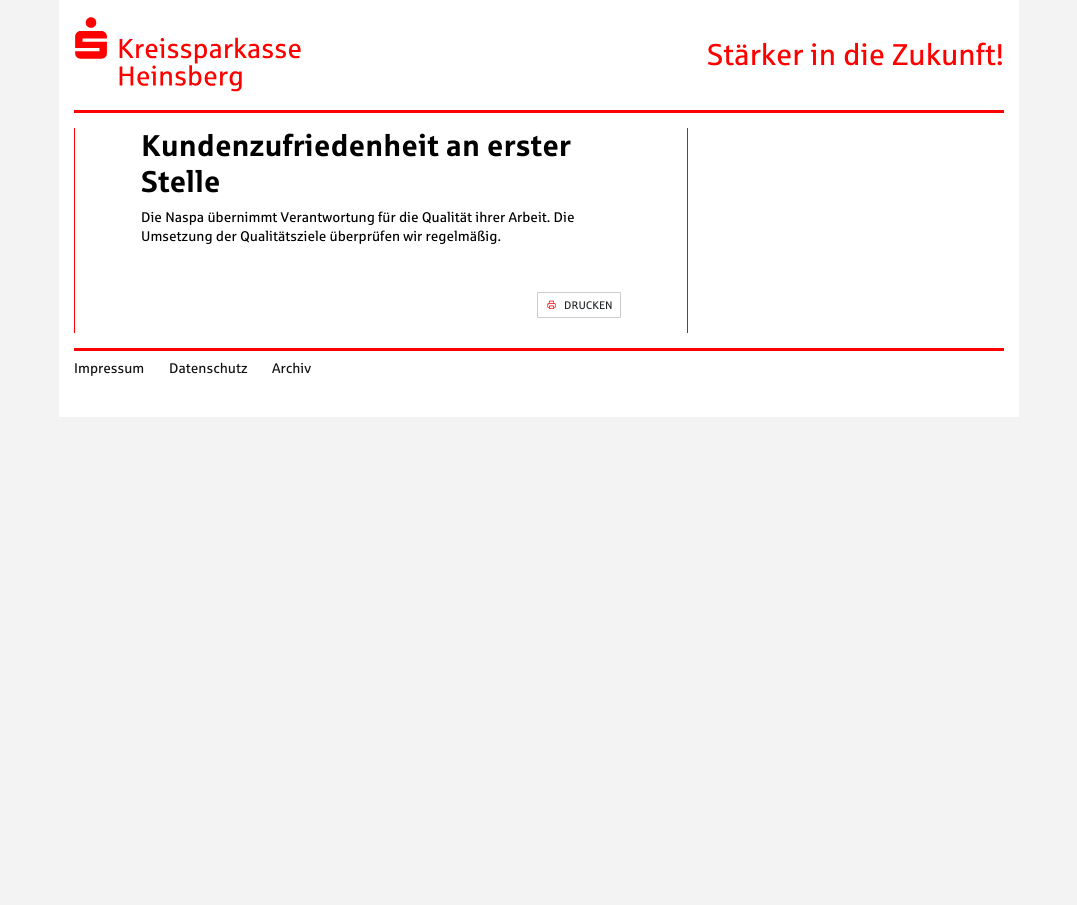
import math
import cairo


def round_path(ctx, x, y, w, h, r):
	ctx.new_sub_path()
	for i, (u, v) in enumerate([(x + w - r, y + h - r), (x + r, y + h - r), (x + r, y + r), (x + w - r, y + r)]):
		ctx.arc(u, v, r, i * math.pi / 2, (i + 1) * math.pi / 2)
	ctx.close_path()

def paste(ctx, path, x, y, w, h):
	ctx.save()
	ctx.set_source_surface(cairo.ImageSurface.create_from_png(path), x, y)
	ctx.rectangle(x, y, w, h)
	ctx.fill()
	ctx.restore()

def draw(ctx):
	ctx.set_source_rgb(0.953, 0.953, 0.953)
	ctx.paint()
	ctx.set_source_rgb(1, 1, 1)
	ctx.rectangle(59, 0, 960, 417)
	ctx.fill()
	paste(ctx, 'media/1.png', 75, 17, 226, 75)
	ctx.select_font_face('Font')
	ctx.set_font_size(30)
	ctx.set_source_rgb(1, 0, 0)
	ctx.move_to(707, 65)
	ctx.show_text('Stärker in die Zukunft!')
	ctx.rectangle(74, 110, 930, 3)
	ctx.rectangle(687, 128, 1, 205)
	ctx.rectangle(74, 128, 1, 205)
	ctx.fill()
	ctx.select_font_face('Font', cairo.FONT_SLANT_NORMAL, cairo.FONT_WEIGHT_BOLD)
	ctx.set_source_rgb(0, 0, 0)
	ctx.move_to(141, 156)
	ctx.show_text('Kundenzufriedenheit an erster')
	ctx.move_to(141, 192)
	ctx.show_text('Stelle')
	ctx.select_font_face('Font')
	ctx.set_font_size(14)
	ctx.move_to(141, 222)
	ctx.show_text('Die Naspa übernimmt Verantwortung für die Qualität ihrer Arbeit. Die')
	ctx.move_to(141, 241)
	ctx.show_text('Umsetzung der Qualitätsziele überprüfen wir regelmäßig.')
	round_path(ctx, 537.5, 292.5, 83, 25, 0.5)
	ctx.set_source_rgb(0.8, 0.8, 0.8)
	ctx.set_line_width(1)
	ctx.stroke()
	paste(ctx, 'media/2.png', 547, 300, 9, 9)
	ctx.set_font_size(11)
	ctx.set_source_rgb(0.129, 0.145, 0.161)
	ctx.move_to(564, 309)
	ctx.show_text('DRUCKEN')
	ctx.set_source_rgb(1, 0, 0)
	ctx.rectangle(74, 348, 930, 3)
	ctx.fill()
	ctx.set_font_size(14)
	ctx.set_source_rgb(0.067, 0.067, 0.067)
	for x, y, s in [
		(74, 373, 'Impressum'),
		(169, 373, 'Datenschutz'),
		(272, 373, 'Archiv'),
	]:
		ctx.move_to(x, y)
		ctx.show_text(s)


surface = cairo.ImageSurface(cairo.FORMAT_RGB24, 1077, 905)
ctx = cairo.Context(surface)
options = cairo.FontOptions()
options.set_hint_metrics(cairo.HINT_METRICS_OFF)
options.set_hint_style(cairo.HINT_STYLE_NONE)
ctx.set_font_options(options)
ctx.set_miter_limit(4)
draw(ctx)
surface.write_to_png('image.png')
